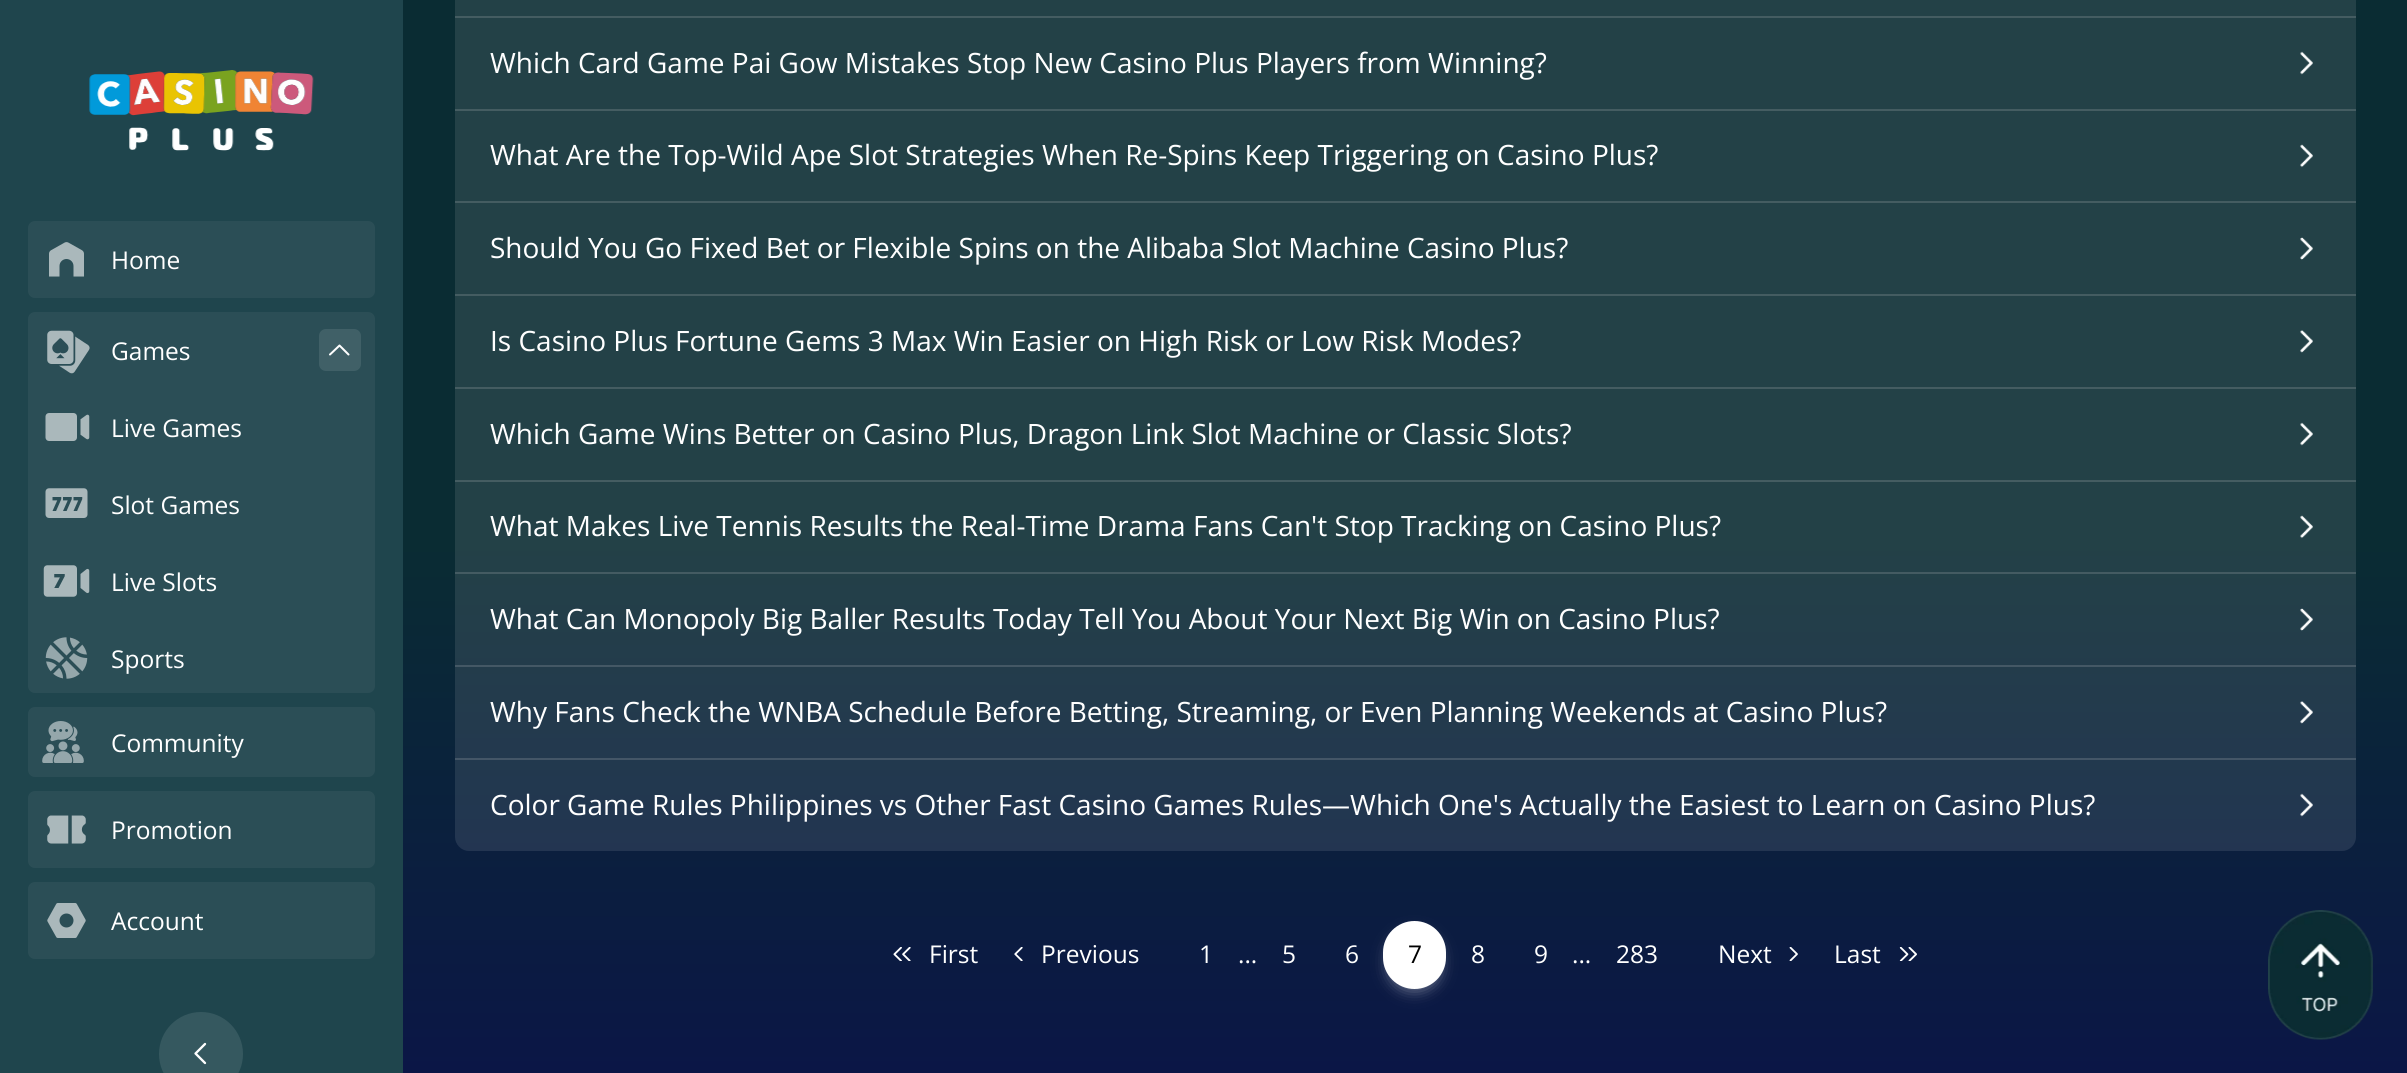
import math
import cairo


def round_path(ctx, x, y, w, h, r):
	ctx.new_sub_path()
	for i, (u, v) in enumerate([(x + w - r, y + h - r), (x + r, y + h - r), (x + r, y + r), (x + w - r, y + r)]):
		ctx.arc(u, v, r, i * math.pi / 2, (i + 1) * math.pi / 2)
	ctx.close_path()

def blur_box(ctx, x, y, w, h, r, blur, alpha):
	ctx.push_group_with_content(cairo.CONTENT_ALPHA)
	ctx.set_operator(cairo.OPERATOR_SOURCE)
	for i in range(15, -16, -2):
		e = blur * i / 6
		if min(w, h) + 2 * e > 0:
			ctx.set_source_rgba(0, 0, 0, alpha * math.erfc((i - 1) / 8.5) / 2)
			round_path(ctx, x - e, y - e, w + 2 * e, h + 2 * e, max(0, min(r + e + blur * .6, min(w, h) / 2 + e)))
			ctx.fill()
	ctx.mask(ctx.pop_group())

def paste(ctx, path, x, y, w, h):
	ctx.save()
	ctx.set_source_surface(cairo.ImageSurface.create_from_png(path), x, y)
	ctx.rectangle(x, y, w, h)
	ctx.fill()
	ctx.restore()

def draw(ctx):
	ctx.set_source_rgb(1, 1, 1)
	ctx.paint()
	gradient = cairo.LinearGradient(1204, 0, 1204, 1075)
	gradient.add_color_stop_rgba(0, 0.039, 0.173, 0.2, 1)
	gradient.add_color_stop_rgba(0.5, 0.039, 0.173, 0.2, 1)
	gradient.add_color_stop_rgba(1, 0.043, 0.086, 0.275, 1)
	ctx.set_source(gradient)
	ctx.rectangle(403, 0, 2004, 1073)
	ctx.fill()
	gradient = cairo.LinearGradient(1204, 0, 1204, 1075)
	gradient.add_color_stop_rgba(0, 0.137, 0.255, 0.278, 1)
	gradient.add_color_stop_rgba(0.5, 0.137, 0.255, 0.278, 1)
	gradient.add_color_stop_rgba(1, 0.137, 0.176, 0.349, 1)
	ctx.set_source(gradient)
	ctx.rectangle(455, 667, 1901, 91)
	ctx.fill()
	ctx.rectangle(455, 574, 1901, 91)
	ctx.fill()
	ctx.rectangle(455, 482, 1901, 90)
	ctx.fill()
	gradient = cairo.LinearGradient(1204, 0, 1204, 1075)
	gradient.add_color_stop_rgba(0, 0.271, 0.365, 0.384, 1)
	gradient.add_color_stop_rgba(0.5, 0.271, 0.365, 0.384, 1)
	gradient.add_color_stop_rgba(1, 0.275, 0.306, 0.439, 1)
	ctx.set_source(gradient)
	ctx.rectangle(455, 481, 1901, 1)
	ctx.fill()
	gradient = cairo.LinearGradient(1204, 0, 1204, 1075)
	gradient.add_color_stop_rgba(0, 0.137, 0.255, 0.278, 1)
	gradient.add_color_stop_rgba(0.5, 0.137, 0.255, 0.278, 1)
	gradient.add_color_stop_rgba(1, 0.137, 0.176, 0.349, 1)
	ctx.set_source(gradient)
	ctx.rectangle(455, 111, 1901, 90)
	ctx.fill()
	gradient = cairo.LinearGradient(1204, 0, 1204, 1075)
	gradient.add_color_stop_rgba(0, 0.271, 0.365, 0.384, 1)
	gradient.add_color_stop_rgba(0.5, 0.271, 0.365, 0.384, 1)
	gradient.add_color_stop_rgba(1, 0.275, 0.306, 0.439, 1)
	ctx.set_source(gradient)
	ctx.rectangle(455, 110, 1901, 1)
	ctx.fill()
	ctx.set_source_rgb(0.122, 0.271, 0.302)
	ctx.rectangle(0, 0, 403, 1073)
	ctx.fill()
	paste(ctx, 'media/1.png', 89, 70, 225, 81)
	ctx.set_source_rgb(0.169, 0.306, 0.337)
	round_path(ctx, 28, 221, 347, 77, 7)
	ctx.fill()
	paste(ctx, 'media/2.png', 49, 242, 35, 35)
	ctx.select_font_face('Open Sans')
	ctx.set_font_size(24.5)
	ctx.set_source_rgb(1, 1, 1)
	ctx.move_to(111, 269)
	ctx.show_text('Home')
	ctx.set_source_rgb(0.169, 0.306, 0.337)
	round_path(ctx, 28, 312, 347, 381, 7)
	ctx.fill()
	paste(ctx, 'media/3.png', 47, 330, 43, 44)
	ctx.set_source_rgb(1, 1, 1)
	ctx.move_to(111, 360)
	ctx.show_text('Games')
	ctx.set_source_rgb(0.251, 0.376, 0.404)
	round_path(ctx, 319, 329, 42, 42, 7)
	ctx.fill()
	ctx.new_path()
	ctx.move_to(330, 354.5)
	ctx.line_to(339.5, 345.5)
	ctx.line_to(348.5, 354.5)
	ctx.set_source_rgb(1, 1, 1)
	ctx.set_line_cap(cairo.LINE_CAP_ROUND)
	ctx.set_line_join(cairo.LINE_JOIN_ROUND)
	ctx.stroke()
	paste(ctx, 'media/4.png', 45, 413, 45, 28)
	ctx.move_to(111, 437)
	ctx.show_text('Live Games')
	paste(ctx, 'media/5.png', 45, 488, 43, 30)
	ctx.move_to(111, 514)
	ctx.show_text('Slot Games')
	paste(ctx, 'media/6.png', 43, 565, 47, 32)
	ctx.move_to(111, 591)
	ctx.show_text('Live Slots')
	paste(ctx, 'media/7.png', 45, 637, 43, 42)
	ctx.move_to(111, 668)
	ctx.show_text('Sports')
	ctx.set_source_rgb(0.169, 0.306, 0.337)
	round_path(ctx, 28, 707, 347, 70, 7)
	ctx.fill()
	paste(ctx, 'media/8.png', 42, 721, 42, 42)
	ctx.set_source_rgb(1, 1, 1)
	ctx.move_to(111, 752)
	ctx.show_text('Community')
	ctx.set_source_rgb(0.169, 0.306, 0.337)
	round_path(ctx, 28, 791, 347, 77, 7)
	ctx.fill()
	paste(ctx, 'media/9.png', 47, 815, 39, 29)
	ctx.set_source_rgb(1, 1, 1)
	ctx.move_to(111, 839)
	ctx.show_text('Promotion')
	ctx.set_source_rgb(0.169, 0.306, 0.337)
	round_path(ctx, 28, 882, 347, 77, 7)
	ctx.fill()
	paste(ctx, 'media/10.png', 47, 903, 39, 35)
	ctx.set_source_rgb(1, 1, 1)
	ctx.move_to(111, 930)
	ctx.show_text('Account')
	ctx.set_source_rgb(0.208, 0.345, 0.373)
	ctx.new_path()
	ctx.arc(201, 1054, 42, 0, 2 * math.pi)
	ctx.fill()
	ctx.new_path()
	ctx.move_to(205, 1063)
	ctx.line_to(195.5, 1053.5)
	ctx.line_to(205, 1044)
	ctx.set_source_rgb(1, 1, 1)
	ctx.set_line_width(2.3)
	ctx.stroke()
	ctx.set_source_rgb(0.137, 0.255, 0.278)
	ctx.rectangle(455, 0, 1901, 16)
	ctx.fill()
	ctx.set_source_rgb(0.267, 0.361, 0.38)
	ctx.rectangle(455, 16, 1901, 2)
	ctx.fill()
	ctx.set_source_rgb(0.137, 0.255, 0.278)
	ctx.rectangle(455, 18, 1901, 91)
	ctx.fill()
	ctx.set_source_rgb(0.267, 0.361, 0.38)
	ctx.rectangle(455, 109, 1901, 1)
	ctx.fill()
	ctx.set_font_size(28)
	ctx.set_source_rgb(1, 1, 1)
	ctx.move_to(490, 73)
	ctx.show_text('Which Card Game Pai Gow Mistakes Stop New Casino Plus Players from Winning?')
	paste(ctx, 'media/11.png', 2300, 51, 13, 24)
	ctx.set_source_rgb(0.267, 0.361, 0.38)
	ctx.rectangle(455, 201, 1901, 2)
	ctx.fill()
	ctx.set_source_rgb(1, 1, 1)
	ctx.move_to(490, 165)
	ctx.show_text('What Are the Top-Wild Ape Slot Strategies When Re-Spins Keep Triggering on Casino Plus?')
	paste(ctx, 'media/12.png', 2300, 144, 13, 24)
	ctx.set_source_rgb(0.137, 0.255, 0.278)
	ctx.rectangle(455, 203, 1901, 91)
	ctx.fill()
	ctx.set_source_rgb(0.267, 0.361, 0.38)
	ctx.rectangle(455, 294, 1901, 2)
	ctx.fill()
	ctx.set_source_rgb(1, 1, 1)
	ctx.move_to(490, 258)
	ctx.show_text('Should You Go Fixed Bet or Flexible Spins on the Alibaba Slot Machine Casino Plus?')
	paste(ctx, 'media/13.png', 2300, 237, 13, 23)
	ctx.set_source_rgb(0.137, 0.255, 0.278)
	ctx.rectangle(455, 296, 1901, 91)
	ctx.fill()
	ctx.set_source_rgb(0.267, 0.361, 0.38)
	ctx.rectangle(455, 387, 1901, 2)
	ctx.fill()
	ctx.set_source_rgb(1, 1, 1)
	ctx.move_to(490, 351)
	ctx.show_text('Is Casino Plus Fortune Gems 3 Max Win Easier on High Risk or Low Risk Modes?')
	paste(ctx, 'media/14.png', 2300, 330, 13, 23)
	ctx.set_source_rgb(0.137, 0.255, 0.278)
	ctx.rectangle(455, 389, 1901, 91)
	ctx.fill()
	ctx.set_source_rgb(0.267, 0.361, 0.38)
	ctx.rectangle(455, 480, 1901, 1)
	ctx.fill()
	ctx.set_source_rgb(1, 1, 1)
	ctx.move_to(490, 444)
	ctx.show_text('Which Game Wins Better on Casino Plus, Dragon Link Slot Machine or Classic Slots?')
	paste(ctx, 'media/11.png', 2300, 422, 13, 24)
	ctx.set_source_rgb(0.267, 0.357, 0.384)
	ctx.rectangle(455, 572, 1901, 2)
	ctx.fill()
	ctx.set_source_rgb(1, 1, 1)
	ctx.move_to(490, 536)
	ctx.show_text('What Makes Live Tennis Results the Real-Time Drama Fans Can\'t Stop Tracking on Casino Plus?')
	paste(ctx, 'media/12.png', 2300, 515, 13, 24)
	ctx.set_source_rgb(0.267, 0.345, 0.396)
	ctx.rectangle(455, 665, 1901, 2)
	ctx.fill()
	ctx.set_source_rgb(1, 1, 1)
	ctx.move_to(490, 629)
	ctx.show_text('What Can Monopoly Big Baller Results Today Tell You About Your Next Big Win on Casino Plus?')
	paste(ctx, 'media/15.png', 2300, 608, 13, 23)
	ctx.set_source_rgb(0.267, 0.337, 0.404)
	ctx.rectangle(455, 758, 1901, 2)
	ctx.fill()
	ctx.set_source_rgb(1, 1, 1)
	ctx.move_to(490, 722)
	ctx.show_text('Why Fans Check the WNBA Schedule Before Betting, Streaming, or Even Planning Weekends at Casino Plus?')
	paste(ctx, 'media/16.png', 2300, 701, 13, 23)
	ctx.set_source_rgba(1, 1, 1, 0.1)
	ctx.new_path()
	ctx.move_to(455, 760)
	ctx.line_to(2356, 760)
	ctx.line_to(2356, 837)
	ctx.curve_to(2356, 844.5, 2349.5, 851, 2342, 851)
	ctx.line_to(469, 851)
	ctx.curve_to(461.5, 851, 455, 844.5, 455, 837)
	ctx.close_path()
	ctx.fill()
	ctx.set_source_rgb(1, 1, 1)
	ctx.move_to(490, 815)
	ctx.show_text('Color Game Rules Philippines vs Other Fast Casino Games Rules—Which One\'s Actually the Easiest to Learn on Casino Plus?')
	paste(ctx, 'media/17.png', 2300, 793, 13, 24)
	paste(ctx, 'media/18.png', 893, 947, 18, 14)
	ctx.set_font_size(24.5)
	ctx.move_to(929, 963)
	ctx.show_text('First')
	paste(ctx, 'media/19.png', 1014, 947, 9, 14)
	for x, y, s in [
		(1041, 963, 'Previous'),
		(1199, 963, '1'),
		(1238, 963, '...'),
		(1282, 963, '5'),
		(1345, 963, '6'),
	]:
		ctx.move_to(x, y)
		ctx.show_text(s)
	ctx.set_source_rgb(1, 1, 1)
	blur_box(ctx, 1390, 935, 49, 54, 24.5, 8, 0.5)
	ctx.set_source_rgb(1, 1, 1)
	round_path(ctx, 1383, 921, 63, 68, 31.5)
	ctx.fill()
	ctx.set_source_rgb(0, 0, 0)
	ctx.move_to(1408, 963)
	ctx.show_text('7')
	ctx.set_source_rgb(1, 1, 1)
	for x, y, s in [
		(1471, 963, '8'),
		(1534, 963, '9'),
		(1572, 963, '...'),
		(1616, 963, '283'),
		(1718, 963, 'Next'),
	]:
		ctx.move_to(x, y)
		ctx.show_text(s)
	paste(ctx, 'media/20.png', 1789, 947, 9, 14)
	ctx.move_to(1834, 963)
	ctx.show_text('Last')
	paste(ctx, 'media/21.png', 1899, 947, 18, 14)
	paste(ctx, 'media/22.png', 2268, 910, 105, 130)


surface = cairo.ImageSurface(cairo.FORMAT_RGB24, 2407, 1073)
ctx = cairo.Context(surface)
options = cairo.FontOptions()
options.set_hint_metrics(cairo.HINT_METRICS_OFF)
options.set_hint_style(cairo.HINT_STYLE_NONE)
ctx.set_font_options(options)
ctx.set_miter_limit(4)
draw(ctx)
surface.write_to_png('image.png')
